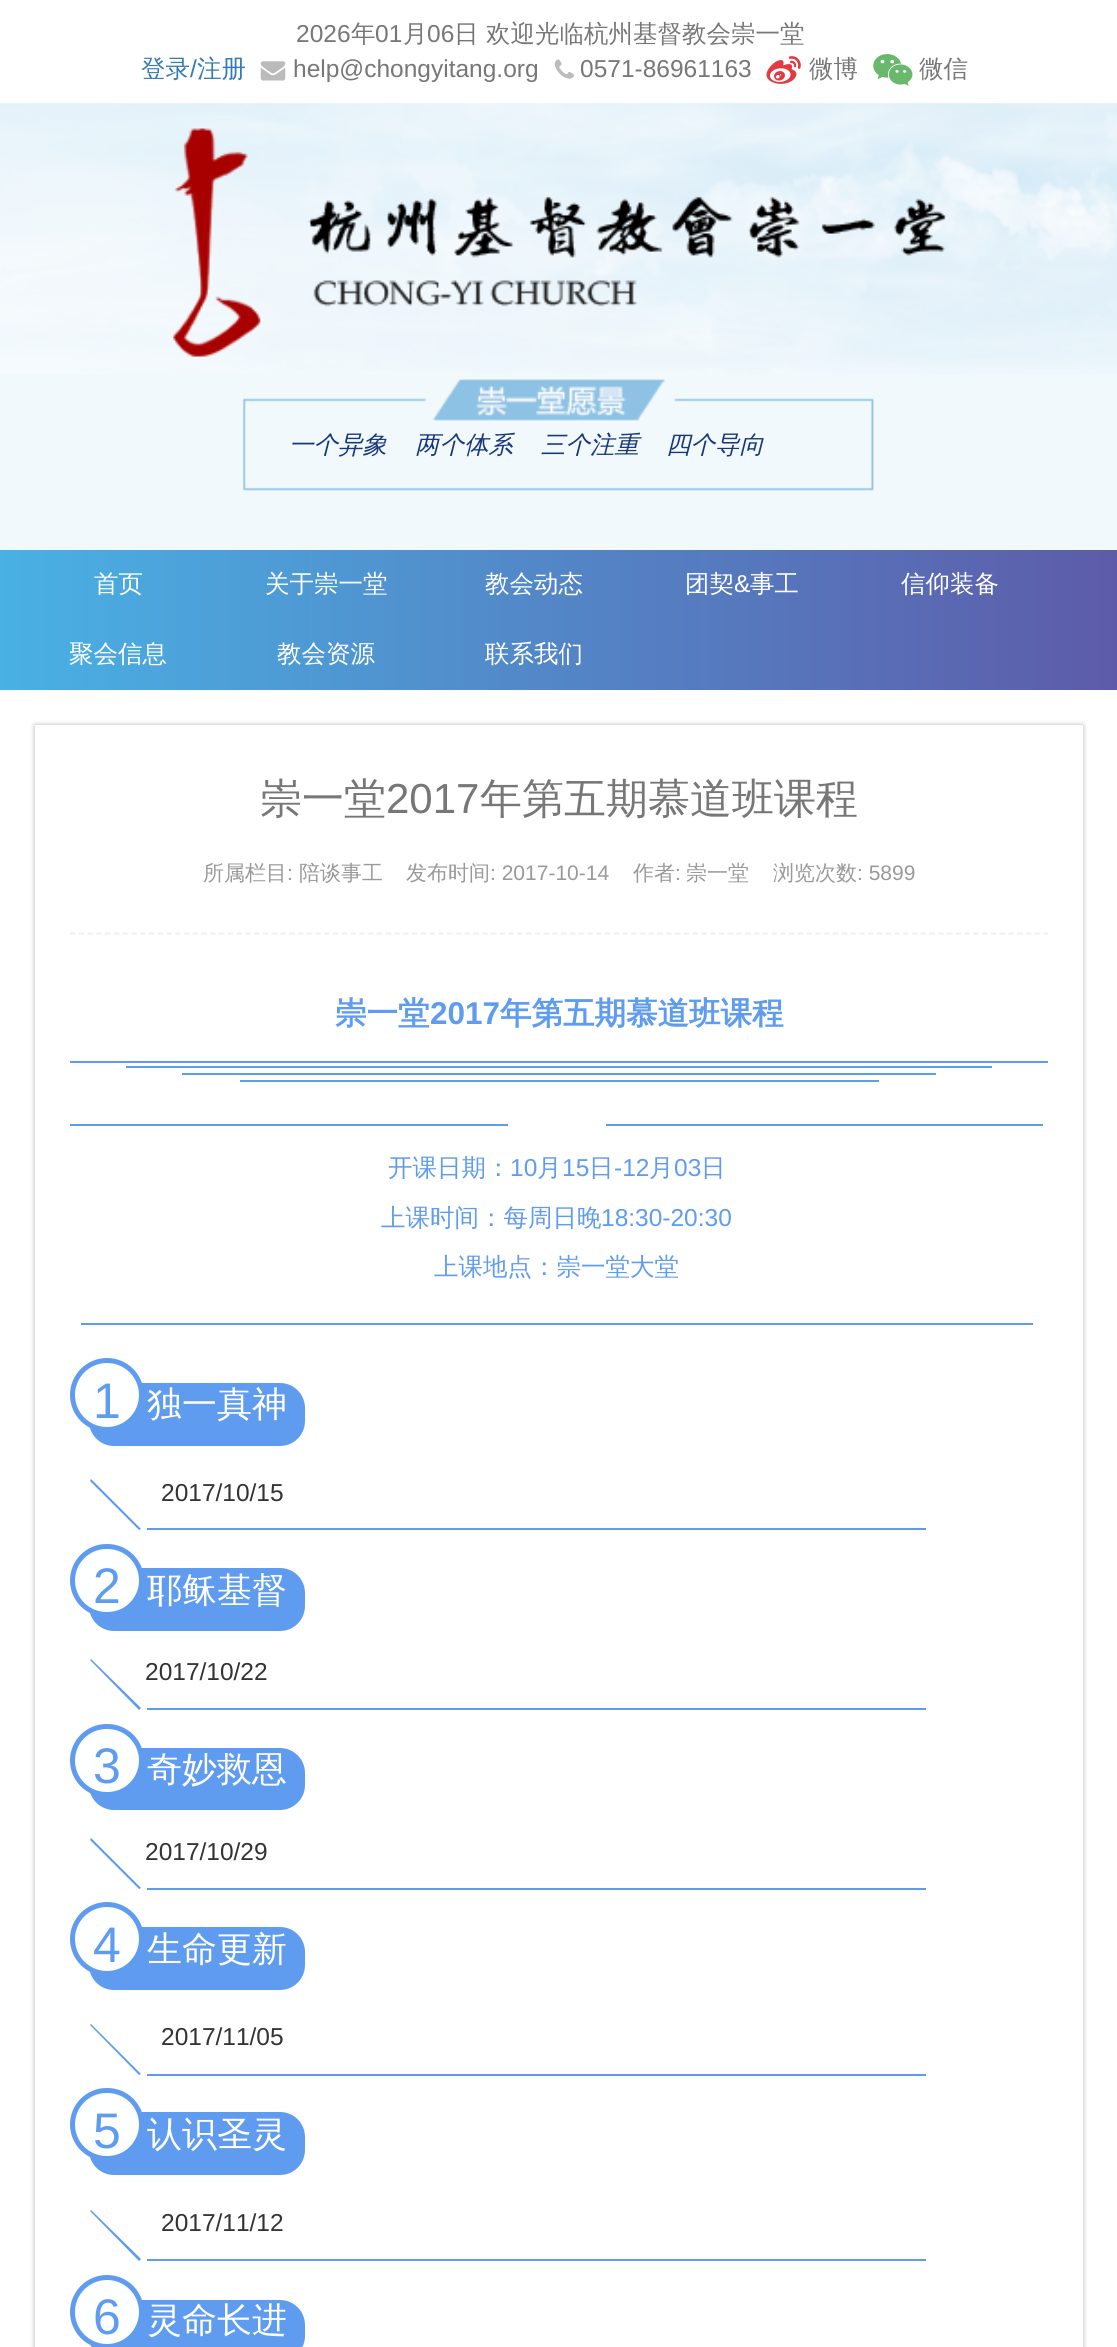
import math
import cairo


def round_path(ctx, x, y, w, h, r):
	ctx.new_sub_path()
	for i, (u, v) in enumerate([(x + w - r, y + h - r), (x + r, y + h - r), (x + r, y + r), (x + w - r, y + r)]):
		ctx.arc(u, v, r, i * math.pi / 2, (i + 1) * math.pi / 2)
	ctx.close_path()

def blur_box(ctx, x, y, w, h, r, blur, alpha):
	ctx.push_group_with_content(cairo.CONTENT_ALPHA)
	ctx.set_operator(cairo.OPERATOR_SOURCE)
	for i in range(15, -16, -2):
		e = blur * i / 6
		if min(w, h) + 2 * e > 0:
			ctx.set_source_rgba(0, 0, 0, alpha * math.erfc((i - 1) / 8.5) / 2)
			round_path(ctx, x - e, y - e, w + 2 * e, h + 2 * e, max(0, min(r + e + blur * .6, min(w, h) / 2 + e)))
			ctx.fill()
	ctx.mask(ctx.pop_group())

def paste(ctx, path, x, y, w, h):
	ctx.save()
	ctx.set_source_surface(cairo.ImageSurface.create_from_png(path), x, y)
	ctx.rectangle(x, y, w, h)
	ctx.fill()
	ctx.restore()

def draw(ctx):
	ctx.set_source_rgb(1, 1, 1)
	ctx.paint()
	ctx.select_font_face('Liberation Sans')
	ctx.set_font_size(24.5)
	ctx.set_source_rgb(0.467, 0.467, 0.467)
	ctx.move_to(296, 42)
	ctx.show_text('2026')
	ctx.select_font_face('WenQuanYi Zen Hei Medium')
	ctx.move_to(351, 42)
	ctx.show_text('年')
	ctx.select_font_face('Liberation Sans')
	ctx.move_to(375, 42)
	ctx.show_text('01')
	ctx.select_font_face('WenQuanYi Zen Hei Medium')
	ctx.move_to(403, 42)
	ctx.show_text('月')
	ctx.select_font_face('Liberation Sans')
	ctx.move_to(427, 42)
	ctx.show_text('06')
	ctx.select_font_face('WenQuanYi Zen Hei Medium')
	ctx.move_to(454, 42)
	ctx.show_text('日')
	ctx.move_to(486, 42)
	ctx.show_text('欢迎光临杭州基督教会崇一堂')
	ctx.set_source_rgb(0.2, 0.478, 0.718)
	ctx.move_to(141, 77)
	ctx.show_text('登录')
	ctx.select_font_face('Liberation Sans')
	ctx.move_to(190, 77)
	ctx.show_text('/')
	ctx.select_font_face('WenQuanYi Zen Hei Medium')
	ctx.move_to(197, 77)
	ctx.show_text('注册')
	paste(ctx, 'media/1.png', 260, 61, 26, 20)
	ctx.select_font_face('Liberation Sans')
	ctx.set_source_rgb(0.467, 0.467, 0.467)
	ctx.move_to(293, 77)
	ctx.show_text('help@chongyitang.org')
	paste(ctx, 'media/2.png', 554, 59, 20, 20)
	ctx.move_to(580, 77)
	ctx.show_text('0571-86961163')
	paste(ctx, 'media/3.png', 766, 56, 35, 28)
	ctx.select_font_face('WenQuanYi Zen Hei Medium')
	ctx.move_to(809, 77)
	ctx.show_text('微博')
	paste(ctx, 'media/4.png', 873, 54, 40, 32)
	ctx.move_to(919, 77)
	ctx.show_text('微信')
	ctx.set_source_rgb(0.949, 0.976, 0.992)
	ctx.rectangle(0, 103, 1117, 447)
	ctx.fill()
	paste(ctx, 'media/5.png', 0, 103, 1117, 271)
	paste(ctx, 'media/6.png', 173, 128, 773, 229)
	paste(ctx, 'media/7.png', 243, 379, 631, 112)
	ctx.select_font_face('WenQuanYi Zen Hei Medium', cairo.FONT_SLANT_ITALIC)
	ctx.set_source_rgb(0.094, 0.216, 0.478)
	for x, y, s in [
		(289, 453, '一个异象'),
		(415, 453, '两个体系'),
		(541, 453, '三个注重'),
		(666, 453, '四个导向'),
	]:
		ctx.move_to(x, y)
		ctx.show_text(s)
	gradient = cairo.LinearGradient(0, 620, 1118, 620)
	gradient.add_color_stop_rgba(0, 0.286, 0.694, 0.894, 1)
	gradient.add_color_stop_rgba(1, 0.365, 0.357, 0.663, 1)
	ctx.set_source(gradient)
	ctx.rectangle(0, 550, 1117, 140)
	ctx.fill()
	ctx.select_font_face('WenQuanYi Zen Hei Medium')
	ctx.set_source_rgb(1, 1, 1)
	for x, y, s in [
		(94, 592, '首页'),
		(265, 592, '关于崇一堂'),
		(485, 592, '教会动态'),
		(685, 592, '团契'),
	]:
		ctx.move_to(x, y)
		ctx.show_text(s)
	ctx.select_font_face('Liberation Sans')
	ctx.move_to(734, 592)
	ctx.show_text('&')
	ctx.select_font_face('WenQuanYi Zen Hei Medium')
	for x, y, s in [
		(750, 592, '事工'),
		(901, 592, '信仰装备'),
		(69, 662, '聚会信息'),
		(277, 662, '教会资源'),
		(485, 662, '联系我们'),
	]:
		ctx.move_to(x, y)
		ctx.show_text(s)
	ctx.save()
	ctx.set_fill_rule(cairo.FILL_RULE_EVEN_ODD)
	ctx.new_path()
	ctx.move_to(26, 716)
	ctx.line_to(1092, 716)
	ctx.line_to(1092, 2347)
	ctx.line_to(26, 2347)
	ctx.close_path()
	ctx.move_to(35, 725)
	ctx.line_to(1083, 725)
	ctx.line_to(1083, 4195)
	ctx.line_to(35, 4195)
	ctx.close_path()
	ctx.clip()
	ctx.set_source_rgb(0, 0, 0)
	blur_box(ctx, 35, 725, 1048, 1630, 0, 2.5, 0.3)
	ctx.restore()
	ctx.new_path()
	ctx.move_to(70, 933.5)
	ctx.line_to(1048, 933.5)
	ctx.set_source_rgb(0.933, 0.933, 0.933)
	ctx.set_line_width(1.8)
	ctx.set_dash([5.25, 3.52])
	ctx.stroke()
	ctx.set_font_size(42)
	ctx.set_source_rgb(0.467, 0.467, 0.467)
	ctx.move_to(260, 813)
	ctx.show_text('崇一堂')
	ctx.select_font_face('Liberation Sans')
	ctx.move_to(386, 813)
	ctx.show_text('2017')
	ctx.select_font_face('WenQuanYi Zen Hei Medium')
	ctx.move_to(480, 813)
	ctx.show_text('年第五期慕道班课程')
	ctx.set_font_size(21)
	ctx.set_source_rgb(0.6, 0.6, 0.6)
	ctx.move_to(203, 880)
	ctx.show_text('所属栏目')
	ctx.select_font_face('Liberation Sans')
	ctx.move_to(287, 880)
	ctx.show_text(':')
	ctx.select_font_face('WenQuanYi Zen Hei Medium')
	ctx.move_to(299, 880)
	ctx.show_text('陪谈事工')
	ctx.move_to(406, 880)
	ctx.show_text('发布时间')
	ctx.select_font_face('Liberation Sans')
	ctx.move_to(490, 880)
	ctx.show_text(': 2017-10-14')
	ctx.select_font_face('WenQuanYi Zen Hei Medium')
	ctx.move_to(633, 880)
	ctx.show_text('作者')
	ctx.select_font_face('Liberation Sans')
	ctx.move_to(675, 880)
	ctx.show_text(':')
	ctx.select_font_face('WenQuanYi Zen Hei Medium')
	ctx.move_to(686, 880)
	ctx.show_text('崇一堂')
	ctx.move_to(773, 880)
	ctx.show_text('浏览次数')
	ctx.select_font_face('Liberation Sans')
	ctx.move_to(857, 880)
	ctx.show_text(': 5899')
	ctx.set_source_rgb(0.373, 0.612, 0.937)
	ctx.rectangle(70, 1061, 978, 2)
	ctx.fill()
	ctx.select_font_face('WenQuanYi Zen Hei', cairo.FONT_SLANT_NORMAL, cairo.FONT_WEIGHT_BOLD)
	ctx.set_font_size(31.5)
	ctx.move_to(335, 1024)
	ctx.show_text('崇一堂')
	ctx.select_font_face('Liberation Sans', cairo.FONT_SLANT_NORMAL, cairo.FONT_WEIGHT_BOLD)
	ctx.move_to(430, 1024)
	ctx.show_text('2017')
	ctx.select_font_face('WenQuanYi Zen Hei', cairo.FONT_SLANT_NORMAL, cairo.FONT_WEIGHT_BOLD)
	ctx.move_to(500, 1024)
	ctx.show_text('年第五期慕道班课程')
	ctx.rectangle(126, 1066, 866, 2)
	ctx.rectangle(182, 1073, 754, 2)
	ctx.rectangle(240, 1080, 639, 2)
	ctx.rectangle(70, 1124, 438, 2)
	ctx.rectangle(606, 1124, 437, 2)
	ctx.fill()
	ctx.select_font_face('WenQuanYi Zen Hei Medium')
	ctx.set_font_size(24.5)
	ctx.move_to(388, 1176)
	ctx.show_text('开课日期：')
	ctx.select_font_face('Liberation Sans')
	ctx.move_to(510, 1176)
	ctx.show_text('10')
	ctx.select_font_face('WenQuanYi Zen Hei Medium')
	ctx.move_to(537, 1176)
	ctx.show_text('月')
	ctx.select_font_face('Liberation Sans')
	ctx.move_to(562, 1176)
	ctx.show_text('15')
	ctx.select_font_face('WenQuanYi Zen Hei Medium')
	ctx.move_to(589, 1176)
	ctx.show_text('日')
	ctx.select_font_face('Liberation Sans')
	ctx.move_to(614, 1176)
	ctx.show_text('-12')
	ctx.select_font_face('WenQuanYi Zen Hei Medium')
	ctx.move_to(649, 1176)
	ctx.show_text('月')
	ctx.select_font_face('Liberation Sans')
	ctx.move_to(674, 1176)
	ctx.show_text('03')
	ctx.select_font_face('WenQuanYi Zen Hei Medium')
	ctx.move_to(701, 1176)
	ctx.show_text('日')
	ctx.move_to(381, 1226)
	ctx.show_text('上课时间：每周日晚')
	ctx.select_font_face('Liberation Sans')
	ctx.move_to(601, 1226)
	ctx.show_text('18:30-20:30')
	ctx.select_font_face('WenQuanYi Zen Hei Medium')
	ctx.move_to(434, 1275)
	ctx.show_text('上课地点：崇一堂大堂')
	ctx.rectangle(81, 1323, 952, 2)
	ctx.fill()
	round_path(ctx, 89, 1383, 216, 63, 25)
	ctx.fill()
	ctx.set_source_rgb(0.996, 1, 1)
	ctx.arc(107, 1395, 34.5, 0, 2 * math.pi)
	ctx.fill_preserve()
	ctx.set_source_rgb(0.373, 0.612, 0.937)
	ctx.set_line_width(5)
	ctx.set_dash([])
	ctx.stroke()
	ctx.select_font_face('Liberation Sans')
	ctx.set_font_size(50)
	ctx.move_to(93, 1418)
	ctx.show_text('1')
	ctx.select_font_face('WenQuanYi Zen Hei Medium')
	ctx.set_font_size(35)
	ctx.set_source_rgb(1, 1, 1)
	ctx.move_to(147, 1416)
	ctx.show_text('独一真神')
	ctx.set_source_rgb(0.373, 0.612, 0.937)
	ctx.new_path()
	ctx.move_to(91, 1479)
	ctx.line_to(141, 1529)
	ctx.line_to(139, 1530)
	ctx.line_to(90, 1481)
	ctx.close_path()
	ctx.fill()
	ctx.rectangle(147, 1528, 779, 2)
	ctx.fill()
	ctx.select_font_face('Liberation Sans')
	ctx.set_font_size(24.5)
	ctx.set_source_rgb(0.2, 0.2, 0.2)
	ctx.move_to(161, 1501)
	ctx.show_text('2017/10/15')
	ctx.set_source_rgb(0.373, 0.612, 0.937)
	round_path(ctx, 89, 1568, 216, 63, 25)
	ctx.fill()
	ctx.set_source_rgb(0.996, 1, 1)
	round_path(ctx, 72.5, 1546.5, 69, 68, 34)
	ctx.fill_preserve()
	ctx.set_source_rgb(0.373, 0.612, 0.937)
	ctx.stroke()
	ctx.set_font_size(50)
	ctx.move_to(93, 1603)
	ctx.show_text('2')
	ctx.select_font_face('WenQuanYi Zen Hei Medium')
	ctx.set_font_size(35)
	ctx.set_source_rgb(1, 1, 1)
	ctx.move_to(147, 1602)
	ctx.show_text('耶稣基督')
	ctx.set_source_rgb(0.373, 0.612, 0.937)
	ctx.new_path()
	ctx.move_to(91, 1659)
	ctx.line_to(141, 1708)
	ctx.line_to(139, 1710)
	ctx.line_to(90, 1660)
	ctx.close_path()
	ctx.fill()
	ctx.rectangle(147, 1708, 779, 2)
	ctx.fill()
	ctx.select_font_face('Liberation Sans')
	ctx.set_font_size(24.5)
	ctx.set_source_rgb(0.2, 0.2, 0.2)
	ctx.move_to(145, 1680)
	ctx.show_text('2017/10/22')
	ctx.set_source_rgb(0.373, 0.612, 0.937)
	round_path(ctx, 89, 1748, 216, 62, 25)
	ctx.fill()
	ctx.set_source_rgb(0.996, 1, 1)
	round_path(ctx, 72.5, 1726.5, 69, 68, 34)
	ctx.fill_preserve()
	ctx.set_source_rgb(0.373, 0.612, 0.937)
	ctx.stroke()
	ctx.set_font_size(50)
	ctx.move_to(93, 1783)
	ctx.show_text('3')
	ctx.select_font_face('WenQuanYi Zen Hei Medium')
	ctx.set_font_size(35)
	ctx.set_source_rgb(1, 1, 1)
	ctx.move_to(147, 1781)
	ctx.show_text('奇妙救恩')
	ctx.set_source_rgb(0.373, 0.612, 0.937)
	ctx.new_path()
	ctx.move_to(91, 1838)
	ctx.line_to(141, 1888)
	ctx.line_to(139, 1889)
	ctx.line_to(90, 1840)
	ctx.close_path()
	ctx.fill()
	ctx.rectangle(147, 1888, 779, 2)
	ctx.fill()
	ctx.select_font_face('Liberation Sans')
	ctx.set_font_size(24.5)
	ctx.set_source_rgb(0.2, 0.2, 0.2)
	ctx.move_to(145, 1860)
	ctx.show_text('2017/10/29')
	ctx.set_source_rgb(0.373, 0.612, 0.937)
	round_path(ctx, 89, 1927, 216, 63, 25)
	ctx.fill()
	ctx.set_source_rgb(0.996, 1, 1)
	ctx.arc(107, 1939, 34.5, 0, 2 * math.pi)
	ctx.fill_preserve()
	ctx.set_source_rgb(0.373, 0.612, 0.937)
	ctx.stroke()
	ctx.set_font_size(50)
	ctx.move_to(93, 1962)
	ctx.show_text('4')
	ctx.select_font_face('WenQuanYi Zen Hei Medium')
	ctx.set_font_size(35)
	ctx.set_source_rgb(1, 1, 1)
	ctx.move_to(147, 1961)
	ctx.show_text('生命更新')
	ctx.set_source_rgb(0.373, 0.612, 0.937)
	ctx.new_path()
	ctx.move_to(91, 2024)
	ctx.line_to(141, 2074)
	ctx.line_to(139, 2075)
	ctx.line_to(90, 2025)
	ctx.close_path()
	ctx.fill()
	ctx.rectangle(147, 2074, 779, 2)
	ctx.fill()
	ctx.select_font_face('Liberation Sans')
	ctx.set_font_size(24.5)
	ctx.set_source_rgb(0.2, 0.2, 0.2)
	ctx.move_to(161, 2045)
	ctx.show_text('2017/11/05')
	ctx.set_source_rgb(0.373, 0.612, 0.937)
	round_path(ctx, 89, 2112, 216, 63, 25)
	ctx.fill()
	ctx.set_source_rgb(0.996, 1, 1)
	round_path(ctx, 72.5, 2090.5, 69, 68, 34)
	ctx.fill_preserve()
	ctx.set_source_rgb(0.373, 0.612, 0.937)
	ctx.stroke()
	ctx.set_font_size(50)
	ctx.move_to(93, 2148)
	ctx.show_text('5')
	ctx.select_font_face('WenQuanYi Zen Hei Medium')
	ctx.set_font_size(35)
	ctx.set_source_rgb(1, 1, 1)
	ctx.move_to(147, 2146)
	ctx.show_text('认识圣灵')
	ctx.set_source_rgb(0.373, 0.612, 0.937)
	ctx.new_path()
	ctx.move_to(91, 2210)
	ctx.line_to(141, 2259)
	ctx.line_to(139, 2261)
	ctx.line_to(90, 2211)
	ctx.close_path()
	ctx.fill()
	ctx.rectangle(147, 2259, 779, 2)
	ctx.fill()
	ctx.select_font_face('Liberation Sans')
	ctx.set_font_size(24.5)
	ctx.set_source_rgb(0.2, 0.2, 0.2)
	ctx.move_to(161, 2231)
	ctx.show_text('2017/11/12')
	ctx.set_source_rgb(0.373, 0.612, 0.937)
	round_path(ctx, 89, 2300, 216, 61, 25)
	ctx.fill()
	ctx.set_source_rgb(0.996, 1, 1)
	ctx.arc(107, 2312, 34.5, 0, 2 * math.pi)
	ctx.fill_preserve()
	ctx.set_source_rgb(0.373, 0.612, 0.937)
	ctx.stroke()
	ctx.set_font_size(50)
	ctx.move_to(93, 2334)
	ctx.show_text('6')
	ctx.select_font_face('WenQuanYi Zen Hei Medium')
	ctx.set_font_size(35)
	ctx.set_source_rgb(1, 1, 1)
	ctx.move_to(147, 2332)
	ctx.show_text('灵命长进')


surface = cairo.ImageSurface(cairo.FORMAT_RGB24, 1117, 2347)
ctx = cairo.Context(surface)
options = cairo.FontOptions()
options.set_hint_metrics(cairo.HINT_METRICS_OFF)
options.set_hint_style(cairo.HINT_STYLE_NONE)
ctx.set_font_options(options)
ctx.set_miter_limit(4)
draw(ctx)
surface.write_to_png('image.png')
